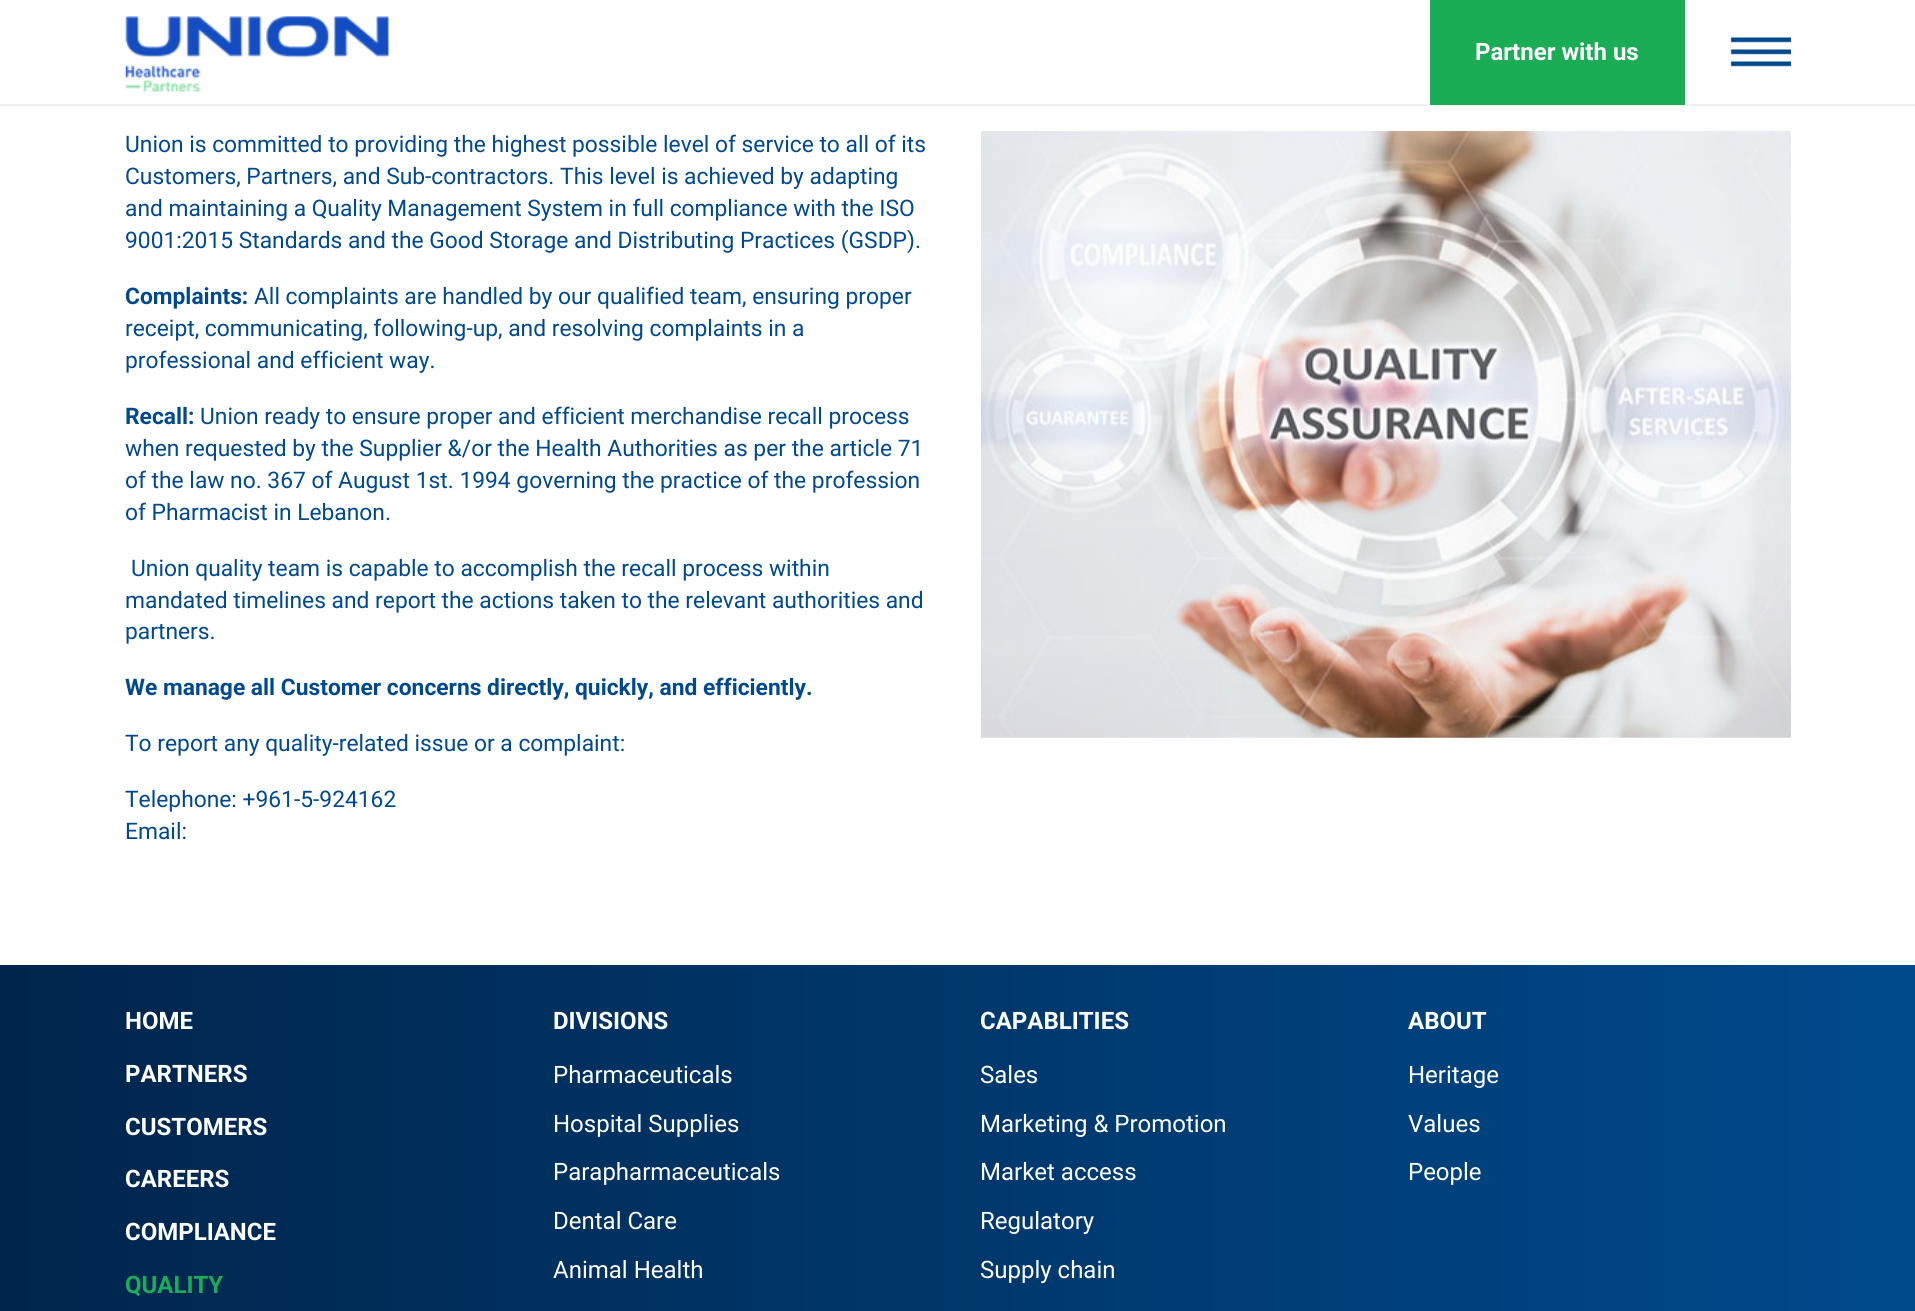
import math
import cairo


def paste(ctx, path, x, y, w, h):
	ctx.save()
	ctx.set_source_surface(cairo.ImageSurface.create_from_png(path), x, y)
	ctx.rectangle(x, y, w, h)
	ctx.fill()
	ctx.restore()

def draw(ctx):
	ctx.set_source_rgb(1, 1, 1)
	ctx.paint()
	ctx.set_source_rgb(0.941, 0.941, 0.941)
	ctx.rectangle(0, 104, 1915, 2)
	ctx.fill()
	paste(ctx, 'media/1.png', 125, 16, 264, 76)
	ctx.set_source_rgb(0.102, 0.678, 0.333)
	ctx.rectangle(1430, 0, 255, 105)
	ctx.fill()
	ctx.select_font_face('Roboto', cairo.FONT_SLANT_NORMAL, cairo.FONT_WEIGHT_BOLD)
	ctx.set_font_size(24)
	ctx.set_source_rgb(1, 1, 1)
	ctx.move_to(1475, 60)
	ctx.show_text('Partner with us')
	paste(ctx, 'media/2.png', 1730, 37, 61, 30)
	ctx.select_font_face('Roboto')
	ctx.set_font_size(22.8)
	ctx.set_source_rgb(0, 0.286, 0.557)
	for x, y, s in [
		(125, 152, 'Union is committed to providing the highest possible level of service to all of its'),
		(125, 184, 'Customers, Partners, and Sub-contractors. This level is achieved by adapting'),
		(125, 216, 'and maintaining a Quality Management System in full compliance with the ISO'),
		(125, 248, '9001:2015 Standards and the Good Storage and Distributing Practices (GSDP).'),
	]:
		ctx.move_to(x, y)
		ctx.show_text(s)
	ctx.select_font_face('Roboto', cairo.FONT_SLANT_NORMAL, cairo.FONT_WEIGHT_BOLD)
	ctx.move_to(125, 304)
	ctx.show_text('Complaints:')
	ctx.select_font_face('Roboto')
	for x, y, s in [
		(254, 304, 'All complaints are handled by our qualified team, ensuring proper'),
		(125, 336, 'receipt, communicating, following-up, and resolving complaints in a'),
		(125, 368, 'professional and efficient way.'),
	]:
		ctx.move_to(x, y)
		ctx.show_text(s)
	ctx.select_font_face('Roboto', cairo.FONT_SLANT_NORMAL, cairo.FONT_WEIGHT_BOLD)
	ctx.move_to(125, 424)
	ctx.show_text('Recall:')
	ctx.select_font_face('Roboto')
	for x, y, s in [
		(200, 424, 'Union ready to ensure proper and efficient merchandise recall process'),
		(125, 456, 'when requested by the Supplier &/or the Health Authorities as per the article 71'),
		(125, 488, 'of the law no. 367 of August 1st. 1994 governing the practice of the profession'),
		(125, 520, 'of Pharmacist in Lebanon.'),
		(131, 576, 'Union quality team is capable to accomplish the recall process within'),
		(125, 608, 'mandated timelines and report the actions taken to the relevant authorities and'),
		(125, 639, 'partners.'),
	]:
		ctx.move_to(x, y)
		ctx.show_text(s)
	ctx.select_font_face('Roboto', cairo.FONT_SLANT_NORMAL, cairo.FONT_WEIGHT_BOLD)
	ctx.move_to(125, 695)
	ctx.show_text('We manage all Customer concerns directly, quickly, and efficiently.')
	ctx.select_font_face('Roboto')
	for x, y, s in [
		(125, 751, 'To report any quality-related issue or a complaint:'),
		(125, 807, 'Telephone: +961-5-924162'),
		(125, 839, 'Email:'),
	]:
		ctx.move_to(x, y)
		ctx.show_text(s)
	paste(ctx, 'media/3.png', 981, 131, 810, 607)
	gradient = cairo.LinearGradient(0, 1182, 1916, 1182)
	gradient.add_color_stop_rgba(0, 0, 0.145, 0.298, 1)
	gradient.add_color_stop_rgba(1, 0, 0.29, 0.549, 1)
	ctx.set_source(gradient)
	ctx.rectangle(0, 965, 1915, 346)
	ctx.fill()
	ctx.select_font_face('Roboto', cairo.FONT_SLANT_NORMAL, cairo.FONT_WEIGHT_BOLD)
	ctx.set_font_size(24)
	ctx.set_source_rgb(1, 1, 1)
	for x, y, s in [
		(125, 1029, 'HOME'),
		(125, 1082, 'PARTNERS'),
		(125, 1135, 'CUSTOMERS'),
		(125, 1187, 'CAREERS'),
		(125, 1240, 'COMPLIANCE'),
	]:
		ctx.move_to(x, y)
		ctx.show_text(s)
	ctx.set_source_rgb(0.102, 0.678, 0.333)
	ctx.move_to(125, 1293)
	ctx.show_text('QUALITY')
	ctx.set_source_rgb(1, 1, 1)
	ctx.move_to(553, 1029)
	ctx.show_text('DIVISIONS')
	ctx.select_font_face('Roboto')
	for x, y, s in [
		(553, 1083, 'Pharmaceuticals'),
		(553, 1132, 'Hospital Supplies'),
		(553, 1180, 'Parapharmaceuticals'),
		(553, 1229, 'Dental Care'),
		(553, 1278, 'Animal Health'),
	]:
		ctx.move_to(x, y)
		ctx.show_text(s)
	ctx.select_font_face('Roboto', cairo.FONT_SLANT_NORMAL, cairo.FONT_WEIGHT_BOLD)
	ctx.move_to(980, 1029)
	ctx.show_text('CAPABLITIES')
	ctx.select_font_face('Roboto')
	for x, y, s in [
		(980, 1083, 'Sales'),
		(980, 1132, 'Marketing & Promotion'),
		(980, 1180, 'Market access'),
		(980, 1229, 'Regulatory'),
		(980, 1278, 'Supply chain'),
	]:
		ctx.move_to(x, y)
		ctx.show_text(s)
	ctx.select_font_face('Roboto', cairo.FONT_SLANT_NORMAL, cairo.FONT_WEIGHT_BOLD)
	ctx.move_to(1408, 1029)
	ctx.show_text('ABOUT')
	ctx.select_font_face('Roboto')
	for x, y, s in [
		(1408, 1083, 'Heritage'),
		(1408, 1132, 'Values'),
		(1408, 1180, 'People'),
	]:
		ctx.move_to(x, y)
		ctx.show_text(s)


surface = cairo.ImageSurface(cairo.FORMAT_RGB24, 1915, 1311)
ctx = cairo.Context(surface)
options = cairo.FontOptions()
options.set_hint_metrics(cairo.HINT_METRICS_OFF)
options.set_hint_style(cairo.HINT_STYLE_NONE)
ctx.set_font_options(options)
ctx.set_miter_limit(4)
draw(ctx)
surface.write_to_png('image.png')
